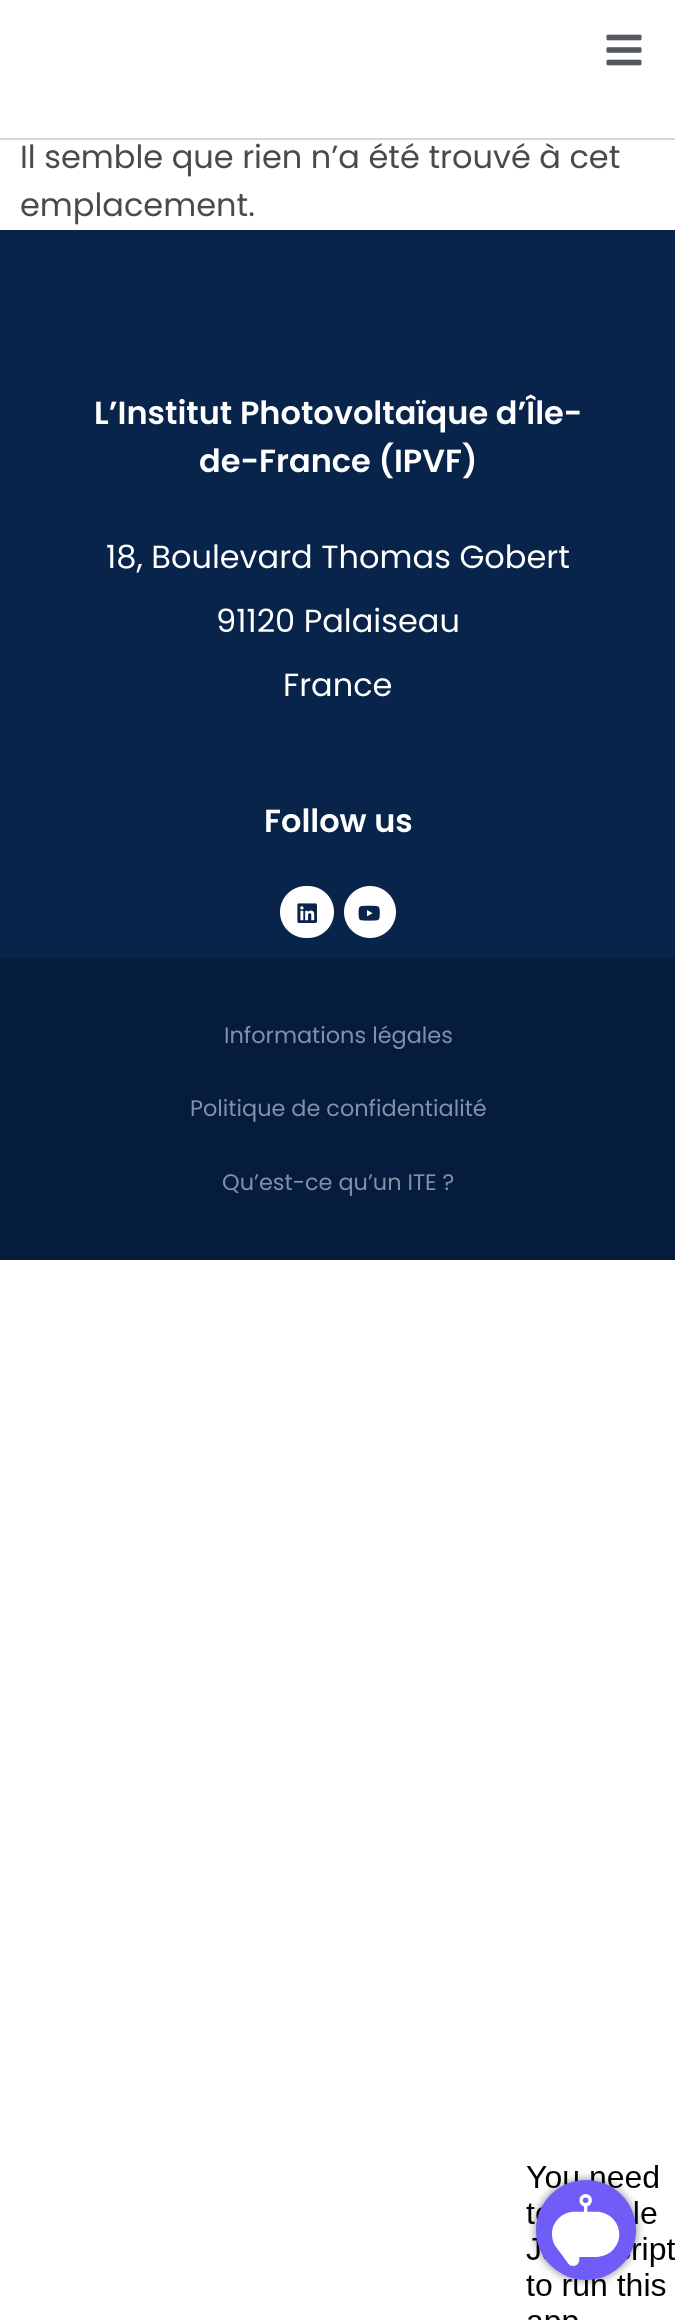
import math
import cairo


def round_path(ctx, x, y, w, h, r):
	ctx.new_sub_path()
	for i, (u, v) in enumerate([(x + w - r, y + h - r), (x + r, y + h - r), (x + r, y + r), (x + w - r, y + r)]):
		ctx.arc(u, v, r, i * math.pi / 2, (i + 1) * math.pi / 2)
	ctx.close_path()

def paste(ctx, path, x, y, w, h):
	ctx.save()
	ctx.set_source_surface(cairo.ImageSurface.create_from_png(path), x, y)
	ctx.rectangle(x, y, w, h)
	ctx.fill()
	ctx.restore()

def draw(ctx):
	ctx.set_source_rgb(1, 1, 1)
	ctx.paint()
	ctx.set_source_rgb(0.847, 0.847, 0.847)
	ctx.rectangle(0, 138, 675, 2)
	ctx.fill()
	paste(ctx, 'media/1.png', 606, 34, 36, 32)
	ctx.select_font_face('Poppins')
	ctx.set_font_size(32)
	ctx.set_source_rgb(0.29, 0.29, 0.29)
	ctx.move_to(20, 168)
	ctx.show_text('Il semble que rien n’a été trouvé à cet')
	ctx.move_to(20, 216)
	ctx.show_text('emplacement.')
	ctx.set_source_rgb(0.039, 0.141, 0.294)
	ctx.rectangle(0, 230, 675, 728)
	ctx.fill()
	ctx.select_font_face('Poppins SemiBold')
	ctx.set_source_rgb(1, 1, 1)
	ctx.move_to(94, 424)
	ctx.show_text('L’Institut Photovoltaïque d’Île-')
	ctx.move_to(199, 472)
	ctx.show_text('de-France (IPVF)')
	ctx.select_font_face('Poppins')
	for x, y, s in [
		(106, 568, '18, Boulevard Thomas Gobert'),
		(216, 632, '91120 Palaiseau'),
		(283, 696, 'France'),
	]:
		ctx.move_to(x, y)
		ctx.show_text(s)
	ctx.select_font_face('Poppins SemiBold')
	ctx.move_to(264, 832)
	ctx.show_text('Follow us')
	round_path(ctx, 280, 886, 54, 52, 26)
	ctx.fill()
	paste(ctx, 'media/2.png', 297, 903, 20, 20)
	ctx.arc(370, 912, 26, 0, 2 * math.pi)
	ctx.fill()
	paste(ctx, 'media/3.png', 358, 905, 22, 16)
	ctx.set_source_rgb(0.02, 0.11, 0.243)
	ctx.rectangle(0, 958, 675, 302)
	ctx.fill()
	ctx.select_font_face('Poppins')
	ctx.set_font_size(22.4)
	ctx.set_source_rgb(0.51, 0.569, 0.659)
	for x, y, s in [
		(224, 1043, 'Informations légales'),
		(190, 1116, 'Politique de confidentialité'),
		(222, 1190, 'Qu’est-ce qu’un ITE ?'),
	]:
		ctx.move_to(x, y)
		ctx.show_text(s)
	paste(ctx, 'media/4.png', 526, 2165, 149, 155)


surface = cairo.ImageSurface(cairo.FORMAT_RGB24, 675, 2320)
ctx = cairo.Context(surface)
options = cairo.FontOptions()
options.set_hint_metrics(cairo.HINT_METRICS_OFF)
options.set_hint_style(cairo.HINT_STYLE_NONE)
ctx.set_font_options(options)
ctx.set_miter_limit(4)
draw(ctx)
surface.write_to_png('image.png')
